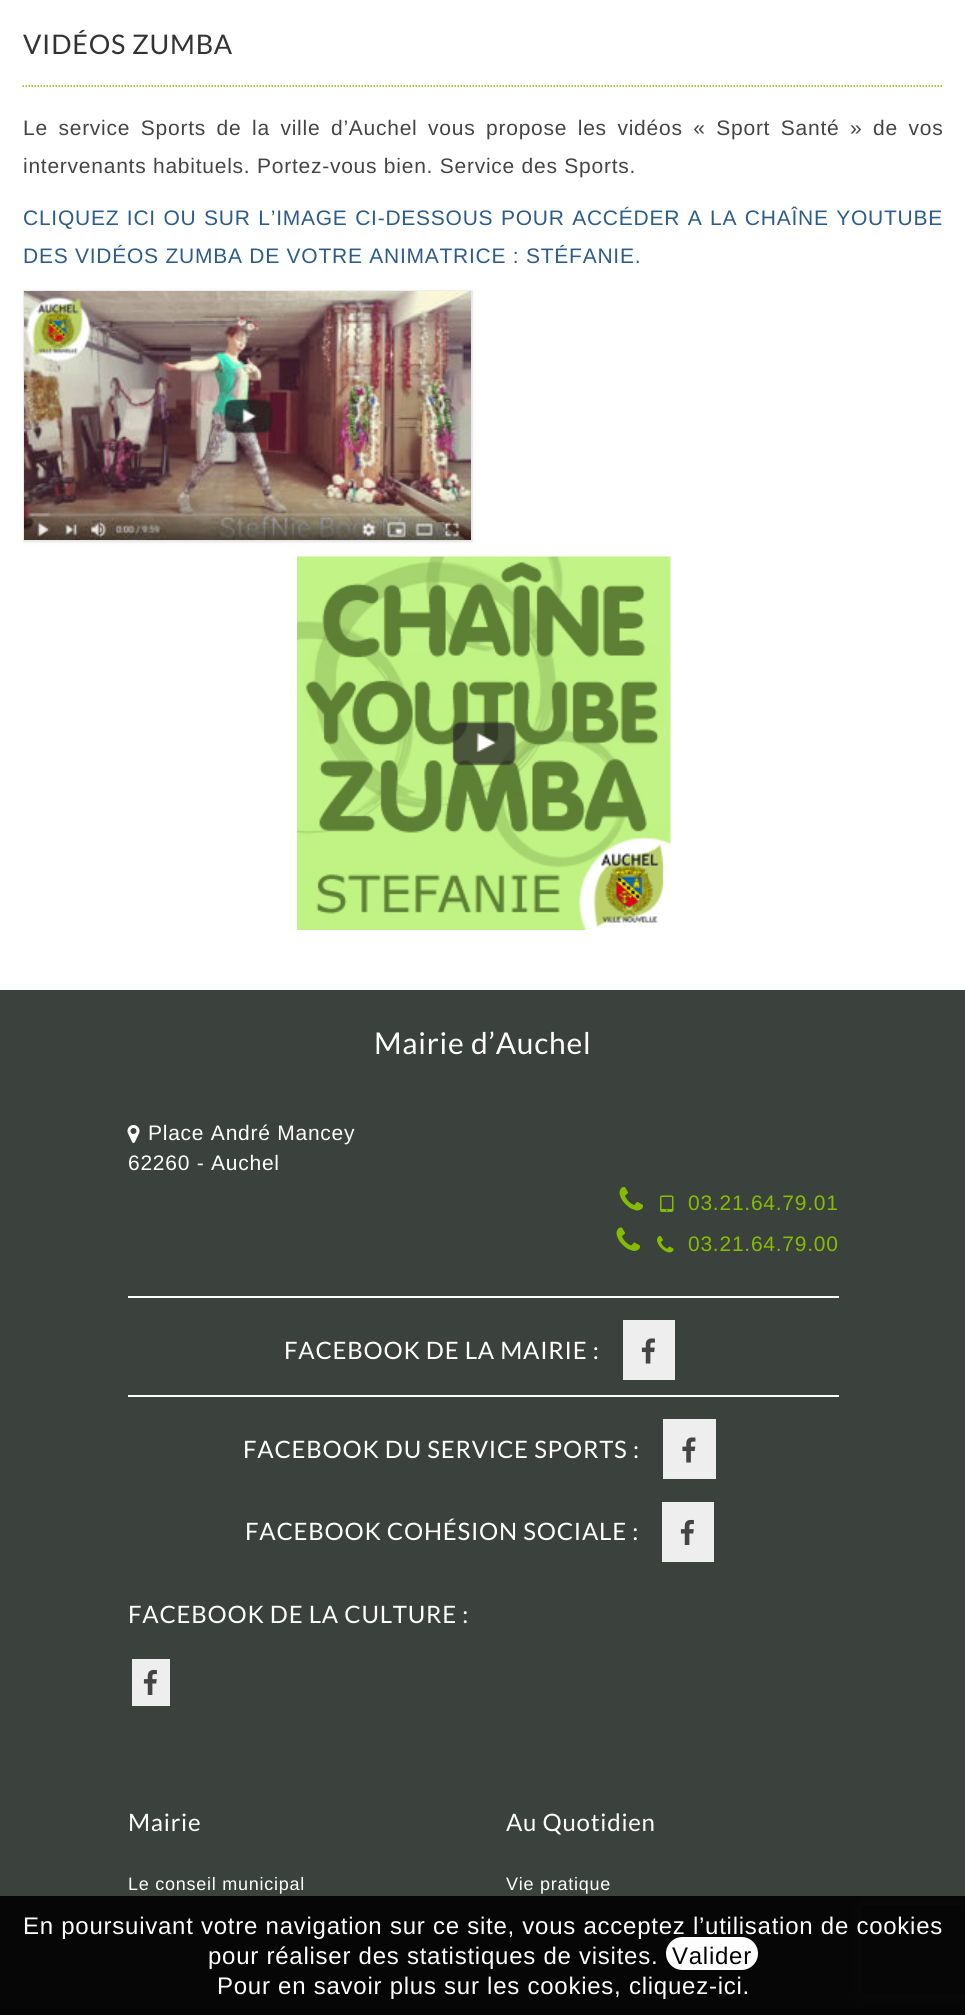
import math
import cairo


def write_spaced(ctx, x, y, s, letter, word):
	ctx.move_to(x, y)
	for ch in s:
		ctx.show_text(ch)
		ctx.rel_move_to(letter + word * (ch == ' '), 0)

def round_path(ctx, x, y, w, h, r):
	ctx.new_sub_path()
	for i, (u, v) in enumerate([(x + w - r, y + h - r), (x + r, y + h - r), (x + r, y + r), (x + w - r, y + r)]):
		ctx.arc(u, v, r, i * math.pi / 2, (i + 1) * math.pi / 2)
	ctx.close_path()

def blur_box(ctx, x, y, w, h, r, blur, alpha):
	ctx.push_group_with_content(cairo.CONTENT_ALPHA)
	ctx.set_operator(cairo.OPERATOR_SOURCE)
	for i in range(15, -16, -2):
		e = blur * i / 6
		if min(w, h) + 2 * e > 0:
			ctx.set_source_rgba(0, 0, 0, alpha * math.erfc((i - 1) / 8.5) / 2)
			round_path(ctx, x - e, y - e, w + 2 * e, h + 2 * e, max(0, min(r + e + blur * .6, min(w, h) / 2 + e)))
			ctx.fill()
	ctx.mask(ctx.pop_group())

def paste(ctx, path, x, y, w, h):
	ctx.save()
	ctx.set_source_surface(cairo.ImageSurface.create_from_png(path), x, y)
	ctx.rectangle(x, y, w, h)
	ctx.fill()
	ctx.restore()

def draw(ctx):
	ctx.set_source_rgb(1, 1, 1)
	ctx.paint()
	ctx.new_path()
	ctx.move_to(22.5, 86)
	ctx.line_to(943.5, 86)
	ctx.set_source_rgb(0.518, 0.741, 0)
	ctx.set_line_width(1.5)
	ctx.set_dash([1.5, 1.5])
	ctx.stroke()
	ctx.select_font_face('Lato')
	ctx.set_font_size(27)
	ctx.set_source_rgb(0.2, 0.2, 0.2)
	write_spaced(ctx, 23, 54, 'VIDÉOS ZUMBA', 0.75, 0)
	ctx.select_font_face('Liberation Sans')
	ctx.set_font_size(21)
	ctx.set_source_rgb(0.267, 0.267, 0.267)
	write_spaced(ctx, 23, 135, 'Le service Sports de la ville d’Auchel vous propose les vidéos « Sport Santé » de vos', 0.75, 4)
	write_spaced(ctx, 23, 173, 'intervenants habituels. Portez-vous bien. Service des Sports.', 0.75, 0)
	ctx.set_source_rgb(0.176, 0.361, 0.533)
	write_spaced(ctx, 23, 225, 'CLIQUEZ ICI OU SUR L’IMAGE CI-DESSOUS POUR ACCÉDER A LA CHAÎNE YOUTUBE', 0.75, 1)
	write_spaced(ctx, 23, 263, 'DES VIDÉOS ZUMBA DE VOTRE ANIMATRICE : STÉFANIE.', 0.75, 0)
	ctx.set_source_rgb(0, 0, 0)
	blur_box(ctx, 23, 291, 450, 252, 0, 2, 0.06)
	ctx.rectangle(24, 291, 448, 250)
	ctx.set_source_rgba(0, 0, 0, 0.05)
	ctx.set_line_width(2)
	ctx.set_dash([])
	ctx.stroke()
	paste(ctx, 'media/1.png', 24, 291, 447, 249)
	paste(ctx, 'media/2.png', 297, 556, 374, 374)
	ctx.set_source_rgb(0.231, 0.255, 0.239)
	ctx.rectangle(0, 990, 965, 1025)
	ctx.fill()
	ctx.select_font_face('Lato')
	ctx.set_font_size(30)
	ctx.set_source_rgb(1, 1, 1)
	write_spaced(ctx, 374, 1054, 'Mairie d’Auchel', 0.75, 0)
	paste(ctx, 'media/3.png', 127, 1125, 13, 18)
	ctx.select_font_face('Liberation Sans')
	ctx.set_font_size(21)
	write_spaced(ctx, 148, 1140, 'Place André Mancey', 0.75, 0)
	write_spaced(ctx, 128, 1170, '62260 - Auchel', 0.75, 0)
	paste(ctx, 'media/4.png', 619, 1186, 24, 25)
	paste(ctx, 'media/5.png', 660, 1195, 14, 17)
	ctx.set_source_rgb(0.518, 0.741, 0)
	write_spaced(ctx, 688, 1210, '03.21.64.79.01', 0.75, 0)
	paste(ctx, 'media/6.png', 616, 1227, 24, 24)
	paste(ctx, 'media/7.png', 657, 1236, 17, 17)
	write_spaced(ctx, 688, 1251, '03.21.64.79.00', 0.75, 0)
	ctx.set_source_rgb(1, 1, 1)
	ctx.rectangle(128, 1296, 711, 2)
	ctx.fill()
	ctx.rectangle(128, 1395, 711, 2)
	ctx.fill()
	ctx.select_font_face('Lato')
	ctx.set_font_size(24)
	write_spaced(ctx, 284, 1359, 'FACEBOOK DE LA MAIRIE :', 0.75, 0)
	ctx.set_source_rgb(0.933, 0.933, 0.933)
	ctx.rectangle(623, 1320, 52, 60)
	ctx.fill()
	paste(ctx, 'media/8.png', 641, 1338, 14, 26)
	ctx.set_source_rgb(1, 1, 1)
	write_spaced(ctx, 243, 1458, 'FACEBOOK DU SERVICE SPORTS :', 0.75, 0)
	ctx.set_source_rgb(0.933, 0.933, 0.933)
	ctx.rectangle(663, 1419, 53, 60)
	ctx.fill()
	paste(ctx, 'media/9.png', 682, 1437, 14, 26)
	ctx.set_source_rgb(1, 1, 1)
	write_spaced(ctx, 245, 1540, 'FACEBOOK COHÉSION SOCIALE :', 0.75, 0)
	ctx.set_source_rgb(0.933, 0.933, 0.933)
	ctx.rectangle(662, 1502, 52, 60)
	ctx.fill()
	paste(ctx, 'media/10.png', 680, 1519, 14, 26)
	ctx.set_source_rgb(1, 1, 1)
	write_spaced(ctx, 128, 1623, 'FACEBOOK DE LA CULTURE :', 0.75, 0)
	ctx.set_source_rgb(0.933, 0.933, 0.933)
	ctx.rectangle(132, 1659, 38, 47)
	ctx.fill()
	paste(ctx, 'media/10.png', 143, 1669, 14, 26)
	ctx.set_source_rgb(1, 1, 1)
	write_spaced(ctx, 128, 1831, 'Mairie', 0.75, 0)
	ctx.select_font_face('Liberation Sans')
	ctx.set_font_size(18)
	write_spaced(ctx, 128, 1890, 'Le conseil municipal', 0.75, 0)
	ctx.select_font_face('Lato')
	ctx.set_font_size(24)
	write_spaced(ctx, 506, 1831, 'Au Quotidien', 0.75, 0)
	ctx.select_font_face('Liberation Sans')
	ctx.set_font_size(18)
	write_spaced(ctx, 506, 1890, 'Vie pratique', 0.75, 0)
	ctx.save()
	ctx.set_fill_rule(cairo.FILL_RULE_EVEN_ODD)
	ctx.new_path()
	ctx.move_to(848, 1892)
	ctx.line_to(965, 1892)
	ctx.line_to(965, 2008)
	ctx.line_to(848, 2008)
	ctx.close_path()
	ctx.move_to(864, 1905)
	ctx.line_to(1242, 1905)
	ctx.curve_to(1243.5, 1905, 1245, 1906.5, 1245, 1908)
	ctx.line_to(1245, 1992)
	ctx.curve_to(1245, 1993.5, 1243.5, 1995, 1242, 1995)
	ctx.line_to(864, 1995)
	ctx.curve_to(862.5, 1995, 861, 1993.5, 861, 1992)
	ctx.line_to(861, 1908)
	ctx.curve_to(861, 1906.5, 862.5, 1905, 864, 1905)
	ctx.close_path()
	ctx.clip()
	ctx.set_source_rgb(0.502, 0.502, 0.502)
	blur_box(ctx, 861, 1905, 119, 90, 3, 4, 1)
	ctx.restore()
	ctx.set_source_rgba(0, 0, 0, 0.9)
	ctx.rectangle(0, 1896, 965, 119)
	ctx.fill()
	ctx.set_font_size(24)
	ctx.set_source_rgb(1, 1, 1)
	write_spaced(ctx, 23, 1934, 'En poursuivant votre navigation sur ce site, vous acceptez l’utilisation de cookies', 0.75, 0)
	write_spaced(ctx, 208, 1964, 'pour réaliser des statistiques de visites.', 0.75, 0)
	round_path(ctx, 666, 1937, 92, 33, 16.5)
	ctx.fill()
	ctx.set_source_rgb(0, 0, 0)
	write_spaced(ctx, 672, 1964, 'Valider', 0.75, 0)
	ctx.set_source_rgb(1, 1, 1)
	write_spaced(ctx, 217, 1994, 'Pour en savoir plus sur les cookies, cliquez-ici.', 0.75, 0)


surface = cairo.ImageSurface(cairo.FORMAT_RGB24, 965, 2015)
ctx = cairo.Context(surface)
options = cairo.FontOptions()
options.set_hint_metrics(cairo.HINT_METRICS_OFF)
options.set_hint_style(cairo.HINT_STYLE_NONE)
ctx.set_font_options(options)
ctx.set_miter_limit(4)
draw(ctx)
surface.write_to_png('image.png')
